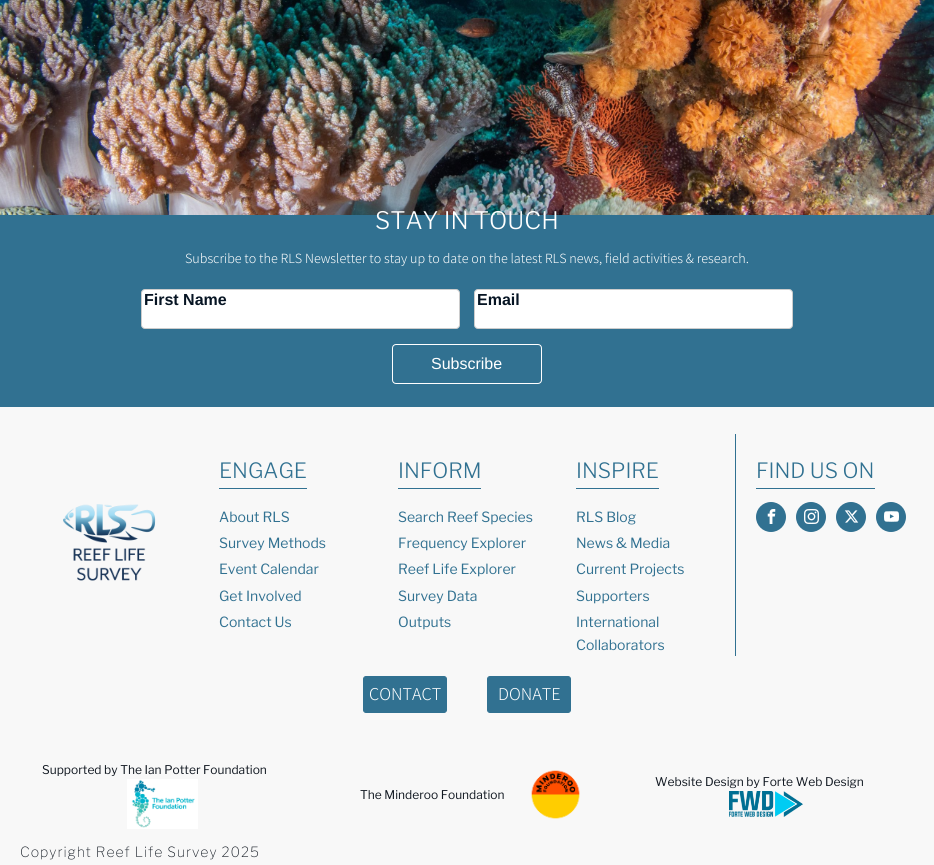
import math
import cairo


def write_spaced(ctx, x, y, s, letter, word):
	ctx.move_to(x, y)
	for ch in s:
		ctx.show_text(ch)
		ctx.rel_move_to(letter + word * (ch == ' '), 0)

def round_path(ctx, x, y, w, h, r):
	ctx.new_sub_path()
	for i, (u, v) in enumerate([(x + w - r, y + h - r), (x + r, y + h - r), (x + r, y + r), (x + w - r, y + r)]):
		ctx.arc(u, v, r, i * math.pi / 2, (i + 1) * math.pi / 2)
	ctx.close_path()

def paste(ctx, path, x, y, w, h):
	ctx.save()
	ctx.set_source_surface(cairo.ImageSurface.create_from_png(path), x, y)
	ctx.rectangle(x, y, w, h)
	ctx.fill()
	ctx.restore()

def draw(ctx):
	ctx.set_source_rgb(0.969, 0.969, 0.969)
	ctx.paint()
	ctx.set_source_rgb(0.192, 0.443, 0.569)
	ctx.rectangle(0, 215, 934, 192)
	ctx.fill()
	paste(ctx, 'media/1.png', 0, 0, 934, 215)
	ctx.select_font_face('Libre Franklin Light')
	ctx.set_font_size(24)
	ctx.set_source_rgb(1, 1, 1)
	ctx.move_to(375, 229)
	ctx.show_text('STAY IN TOUCH')
	ctx.select_font_face('Assistant Light')
	ctx.set_font_size(14)
	ctx.move_to(185, 263)
	ctx.show_text('Subscribe to the RLS Newsletter to stay up to date on the latest RLS news, field activities & research.')
	round_path(ctx, 141.5, 289.5, 318, 39, 3.5)
	ctx.fill_preserve()
	ctx.set_source_rgb(0.8, 0.8, 0.8)
	ctx.set_line_width(1)
	ctx.stroke()
	ctx.select_font_face('Liberation Sans', cairo.FONT_SLANT_NORMAL, cairo.FONT_WEIGHT_BOLD)
	ctx.set_font_size(16)
	ctx.set_source_rgb(0.024, 0.082, 0.137)
	ctx.move_to(144, 305)
	ctx.show_text('First Name')
	ctx.set_source_rgb(1, 1, 1)
	round_path(ctx, 474.5, 289.5, 318, 39, 3.5)
	ctx.fill_preserve()
	ctx.set_source_rgb(0.8, 0.8, 0.8)
	ctx.stroke()
	ctx.set_source_rgb(0.024, 0.082, 0.137)
	ctx.move_to(477, 305)
	ctx.show_text('Email')
	round_path(ctx, 392.5, 344.5, 149, 39, 3.5)
	ctx.set_source_rgb(1, 1, 1)
	ctx.stroke()
	ctx.select_font_face('Liberation Sans')
	ctx.move_to(431, 369)
	ctx.show_text('Subscribe')
	ctx.set_source_rgb(0.192, 0.443, 0.569)
	ctx.rectangle(219, 488, 88, 1)
	ctx.fill()
	ctx.select_font_face('Libre Franklin Light')
	ctx.set_font_size(21)
	ctx.move_to(219, 478)
	ctx.show_text('ENGAGE')
	ctx.select_font_face('Libre Franklin')
	ctx.set_font_size(14)
	for x, y, s in [
		(219, 522, 'About RLS'),
		(219, 548, 'Survey Methods'),
		(219, 574, 'Event Calendar'),
		(219, 601, 'Get Involved'),
		(219, 627, 'Contact Us'),
	]:
		ctx.move_to(x, y)
		ctx.show_text(s)
	ctx.rectangle(398, 488, 83, 1)
	ctx.fill()
	ctx.select_font_face('Libre Franklin Light')
	ctx.set_font_size(21)
	ctx.move_to(398, 478)
	ctx.show_text('INFORM')
	ctx.select_font_face('Libre Franklin')
	ctx.set_font_size(14)
	for x, y, s in [
		(398, 522, 'Search Reef Species'),
		(398, 548, 'Frequency Explorer'),
		(398, 574, 'Reef Life Explorer'),
		(398, 601, 'Survey Data'),
		(398, 627, 'Outputs'),
	]:
		ctx.move_to(x, y)
		ctx.show_text(s)
	ctx.rectangle(576, 488, 83, 1)
	ctx.fill()
	ctx.select_font_face('Libre Franklin Light')
	ctx.set_font_size(21)
	ctx.move_to(576, 478)
	ctx.show_text('INSPIRE')
	ctx.select_font_face('Libre Franklin')
	ctx.set_font_size(14)
	for x, y, s in [
		(576, 522, 'RLS Blog'),
		(576, 548, 'News & Media'),
		(576, 574, 'Current Projects'),
		(576, 601, 'Supporters'),
		(576, 627, 'International'),
		(576, 650, 'Collaborators'),
	]:
		ctx.move_to(x, y)
		ctx.show_text(s)
	ctx.rectangle(735, 434, 1, 222)
	ctx.fill()
	ctx.rectangle(756, 488, 119, 1)
	ctx.fill()
	ctx.select_font_face('Libre Franklin Light')
	ctx.set_font_size(21)
	ctx.move_to(756, 478)
	ctx.show_text('FIND US ON')
	ctx.new_path()
	ctx.arc(771, 517, 15, 0, 2 * math.pi)
	ctx.fill()
	paste(ctx, 'media/2.png', 767, 509, 9, 15)
	ctx.arc(811, 517, 15, 0, 2 * math.pi)
	ctx.fill()
	paste(ctx, 'media/3.png', 804, 509, 15, 15)
	ctx.arc(851, 517, 15, 0, 2 * math.pi)
	ctx.fill()
	paste(ctx, 'media/4.png', 844, 510, 15, 13)
	ctx.arc(891, 517, 15, 0, 2 * math.pi)
	ctx.fill()
	paste(ctx, 'media/5.png', 884, 511, 15, 11)
	paste(ctx, 'media/6.png', 63, 504, 93, 77)
	round_path(ctx, 363.5, 676.5, 83, 36, 2.5)
	ctx.fill_preserve()
	ctx.stroke()
	ctx.select_font_face('Assistant Light')
	ctx.set_font_size(18)
	ctx.set_source_rgb(1, 1, 1)
	ctx.move_to(369, 700)
	ctx.show_text('CONTACT')
	ctx.set_source_rgb(0.192, 0.443, 0.569)
	round_path(ctx, 487.5, 676.5, 83, 36, 2.5)
	ctx.fill_preserve()
	ctx.stroke()
	ctx.set_source_rgb(1, 1, 1)
	ctx.move_to(498, 700)
	ctx.show_text('DONATE')
	ctx.select_font_face('Libre Franklin')
	ctx.set_font_size(12)
	ctx.set_source_rgb(0.067, 0.094, 0.129)
	ctx.move_to(42, 774)
	ctx.show_text('Supported by The Ian Potter Foundation')
	paste(ctx, 'media/7.png', 127, 779, 71, 50)
	ctx.move_to(655, 786)
	ctx.show_text('Website Design by Forte Web Design')
	paste(ctx, 'media/8.png', 729, 791, 74, 26)
	ctx.move_to(360, 799)
	ctx.show_text('The Minderoo Foundation')
	paste(ctx, 'media/9.png', 531, 770, 49, 49)
	ctx.select_font_face('Libre Franklin Thin')
	ctx.set_font_size(14)
	write_spaced(ctx, 20, 857, 'Copyright Reef Life Survey 2025', 1, 0)


surface = cairo.ImageSurface(cairo.FORMAT_RGB24, 934, 865)
ctx = cairo.Context(surface)
options = cairo.FontOptions()
options.set_hint_metrics(cairo.HINT_METRICS_OFF)
options.set_hint_style(cairo.HINT_STYLE_NONE)
ctx.set_font_options(options)
ctx.set_miter_limit(4)
draw(ctx)
surface.write_to_png('image.png')
